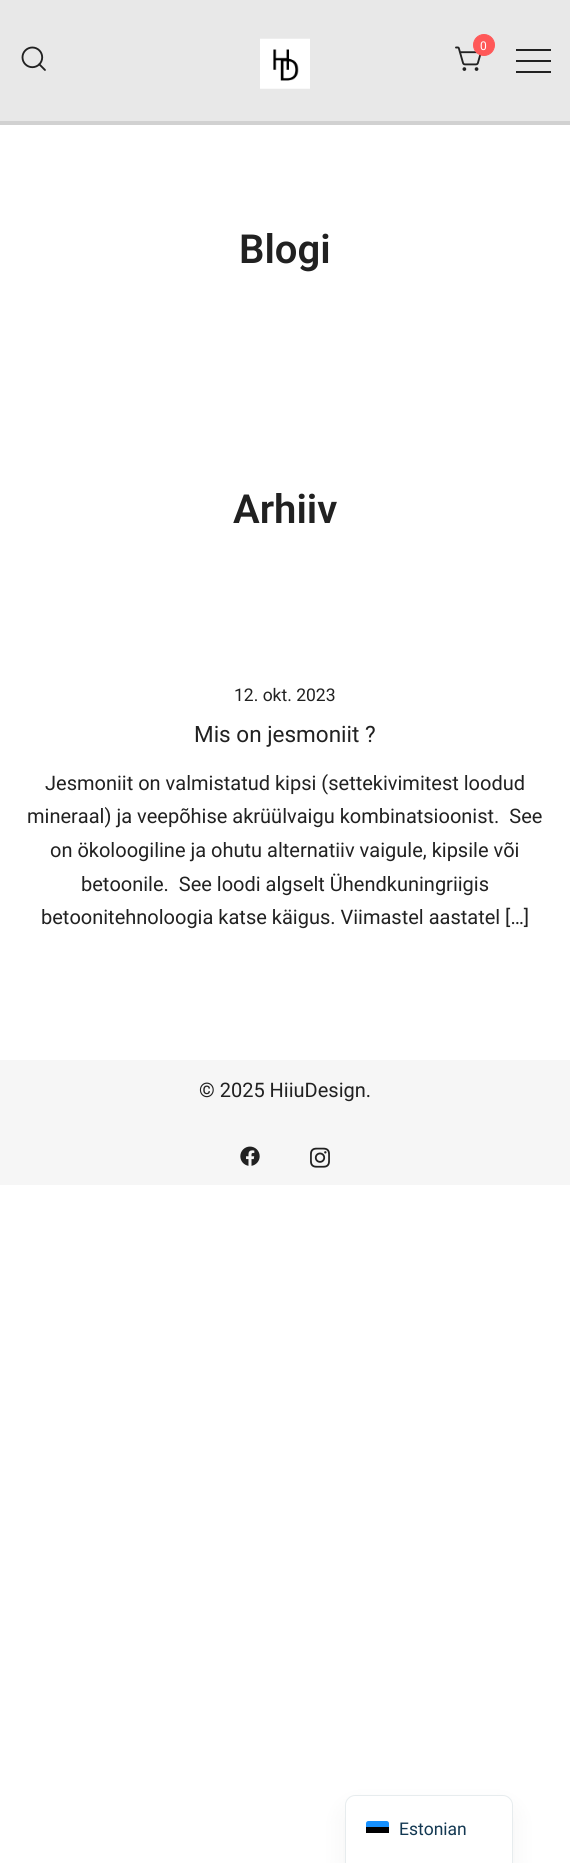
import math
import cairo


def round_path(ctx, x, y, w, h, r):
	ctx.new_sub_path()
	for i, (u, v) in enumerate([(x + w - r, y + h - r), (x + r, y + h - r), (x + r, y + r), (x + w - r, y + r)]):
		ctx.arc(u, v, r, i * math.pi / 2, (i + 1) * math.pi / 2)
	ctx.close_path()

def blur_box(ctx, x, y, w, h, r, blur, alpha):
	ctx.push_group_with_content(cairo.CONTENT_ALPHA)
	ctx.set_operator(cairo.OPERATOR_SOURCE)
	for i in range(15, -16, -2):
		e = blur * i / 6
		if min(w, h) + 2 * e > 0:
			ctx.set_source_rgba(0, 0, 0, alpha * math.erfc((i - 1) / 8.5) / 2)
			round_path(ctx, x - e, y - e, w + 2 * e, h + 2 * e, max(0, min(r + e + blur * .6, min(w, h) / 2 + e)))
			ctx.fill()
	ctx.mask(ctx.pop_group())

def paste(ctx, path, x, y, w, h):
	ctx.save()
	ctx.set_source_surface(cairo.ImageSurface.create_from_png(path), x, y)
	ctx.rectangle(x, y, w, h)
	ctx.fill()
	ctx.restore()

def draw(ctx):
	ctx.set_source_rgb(1, 1, 1)
	ctx.paint()
	ctx.set_source_rgb(0.91, 0.91, 0.91)
	ctx.rectangle(0, 0, 570, 121)
	ctx.fill()
	ctx.set_source_rgb(0.82, 0.82, 0.82)
	ctx.rectangle(0, 121, 570, 4)
	ctx.fill()
	paste(ctx, 'media/1.png', 21, 46, 25, 25)
	paste(ctx, 'media/2.png', 260, 38, 50, 51)
	paste(ctx, 'media/3.png', 455, 46, 27, 25)
	ctx.set_source_rgb(1, 0.345, 0.345)
	ctx.arc(484, 45, 10.5, 0, 2 * math.pi)
	ctx.fill_preserve()
	ctx.set_line_width(1)
	ctx.stroke()
	ctx.select_font_face('Roboto')
	ctx.set_font_size(12)
	ctx.set_source_rgb(1, 1, 1)
	ctx.move_to(480, 50)
	ctx.show_text('0')
	ctx.set_source_rgb(0.129, 0.129, 0.129)
	ctx.rectangle(516, 49, 35, 2)
	ctx.rectangle(516, 60, 35, 2)
	ctx.rectangle(516, 71, 35, 2)
	ctx.fill()
	ctx.select_font_face('Roboto SemiBold')
	ctx.set_font_size(40)
	ctx.move_to(239, 263)
	ctx.show_text('Blogi')
	ctx.move_to(233, 523)
	ctx.show_text('Arhiiv')
	ctx.select_font_face('Roboto')
	ctx.set_font_size(17.5)
	ctx.move_to(234, 701)
	ctx.show_text('12. okt. 2023')
	ctx.set_font_size(22.5)
	ctx.move_to(194, 742)
	ctx.show_text('Mis on jesmoniit ?')
	ctx.set_font_size(20)
	for x, y, s in [
		(45, 790, 'Jesmoniit on valmistatud kipsi (settekivimitest loodud'),
		(27, 823, 'mineraal) ja veepõhise akrüülvaigu kombinatsioonist.  See'),
		(50, 857, 'on ökoloogiline ja ohutu alternatiiv vaigule, kipsile või'),
		(81, 891, 'betoonile.  See loodi algselt Ühendkuningriigis'),
		(41, 924, 'betoonitehnoloogia katse käigus. Viimastel aastatel […]'),
	]:
		ctx.move_to(x, y)
		ctx.show_text(s)
	ctx.set_source_rgb(0.961, 0.961, 0.961)
	ctx.rectangle(0, 1060, 570, 125)
	ctx.fill()
	ctx.set_source_rgb(0.129, 0.129, 0.129)
	ctx.move_to(199, 1097)
	ctx.show_text('© 2025 HiiuDesign.')
	paste(ctx, 'media/4.png', 240, 1146, 20, 20)
	paste(ctx, 'media/5.png', 310, 1147, 20, 21)
	ctx.set_source_rgb(0, 0, 0)
	blur_box(ctx, 345, 1808, 168, 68, 10, 12.5, 0.05)
	ctx.set_source_rgb(1, 1, 1)
	ctx.new_path()
	ctx.move_to(355, 1795.5)
	ctx.line_to(503, 1795.5)
	ctx.curve_to(508, 1795.5, 512.5, 1800, 512.5, 1805)
	ctx.line_to(512.5, 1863.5)
	ctx.line_to(345.5, 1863.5)
	ctx.line_to(345.5, 1805)
	ctx.curve_to(345.5, 1800, 350, 1795.5, 355, 1795.5)
	ctx.close_path()
	ctx.fill_preserve()
	ctx.set_source_rgb(0.906, 0.922, 0.933)
	ctx.stroke()
	ctx.set_source_rgb(0.09, 0.569, 1)
	ctx.new_path()
	ctx.move_to(368.5, 1821)
	ctx.line_to(386.5, 1821)
	ctx.curve_to(388, 1821, 389, 1822, 389, 1823.5)
	ctx.line_to(389, 1827)
	ctx.line_to(366, 1827)
	ctx.line_to(366, 1823.5)
	ctx.curve_to(366, 1822, 367, 1821, 368.5, 1821)
	ctx.close_path()
	ctx.fill()
	ctx.set_source_rgb(0, 0, 0.004)
	ctx.rectangle(366, 1827, 23, 6)
	ctx.fill()
	ctx.set_font_size(17.5)
	ctx.set_source_rgb(0.078, 0.22, 0.322)
	ctx.move_to(399, 1835)
	ctx.show_text('Estonian')


surface = cairo.ImageSurface(cairo.FORMAT_RGB24, 570, 1863)
ctx = cairo.Context(surface)
options = cairo.FontOptions()
options.set_hint_metrics(cairo.HINT_METRICS_OFF)
options.set_hint_style(cairo.HINT_STYLE_NONE)
ctx.set_font_options(options)
ctx.set_miter_limit(4)
draw(ctx)
surface.write_to_png('image.png')
